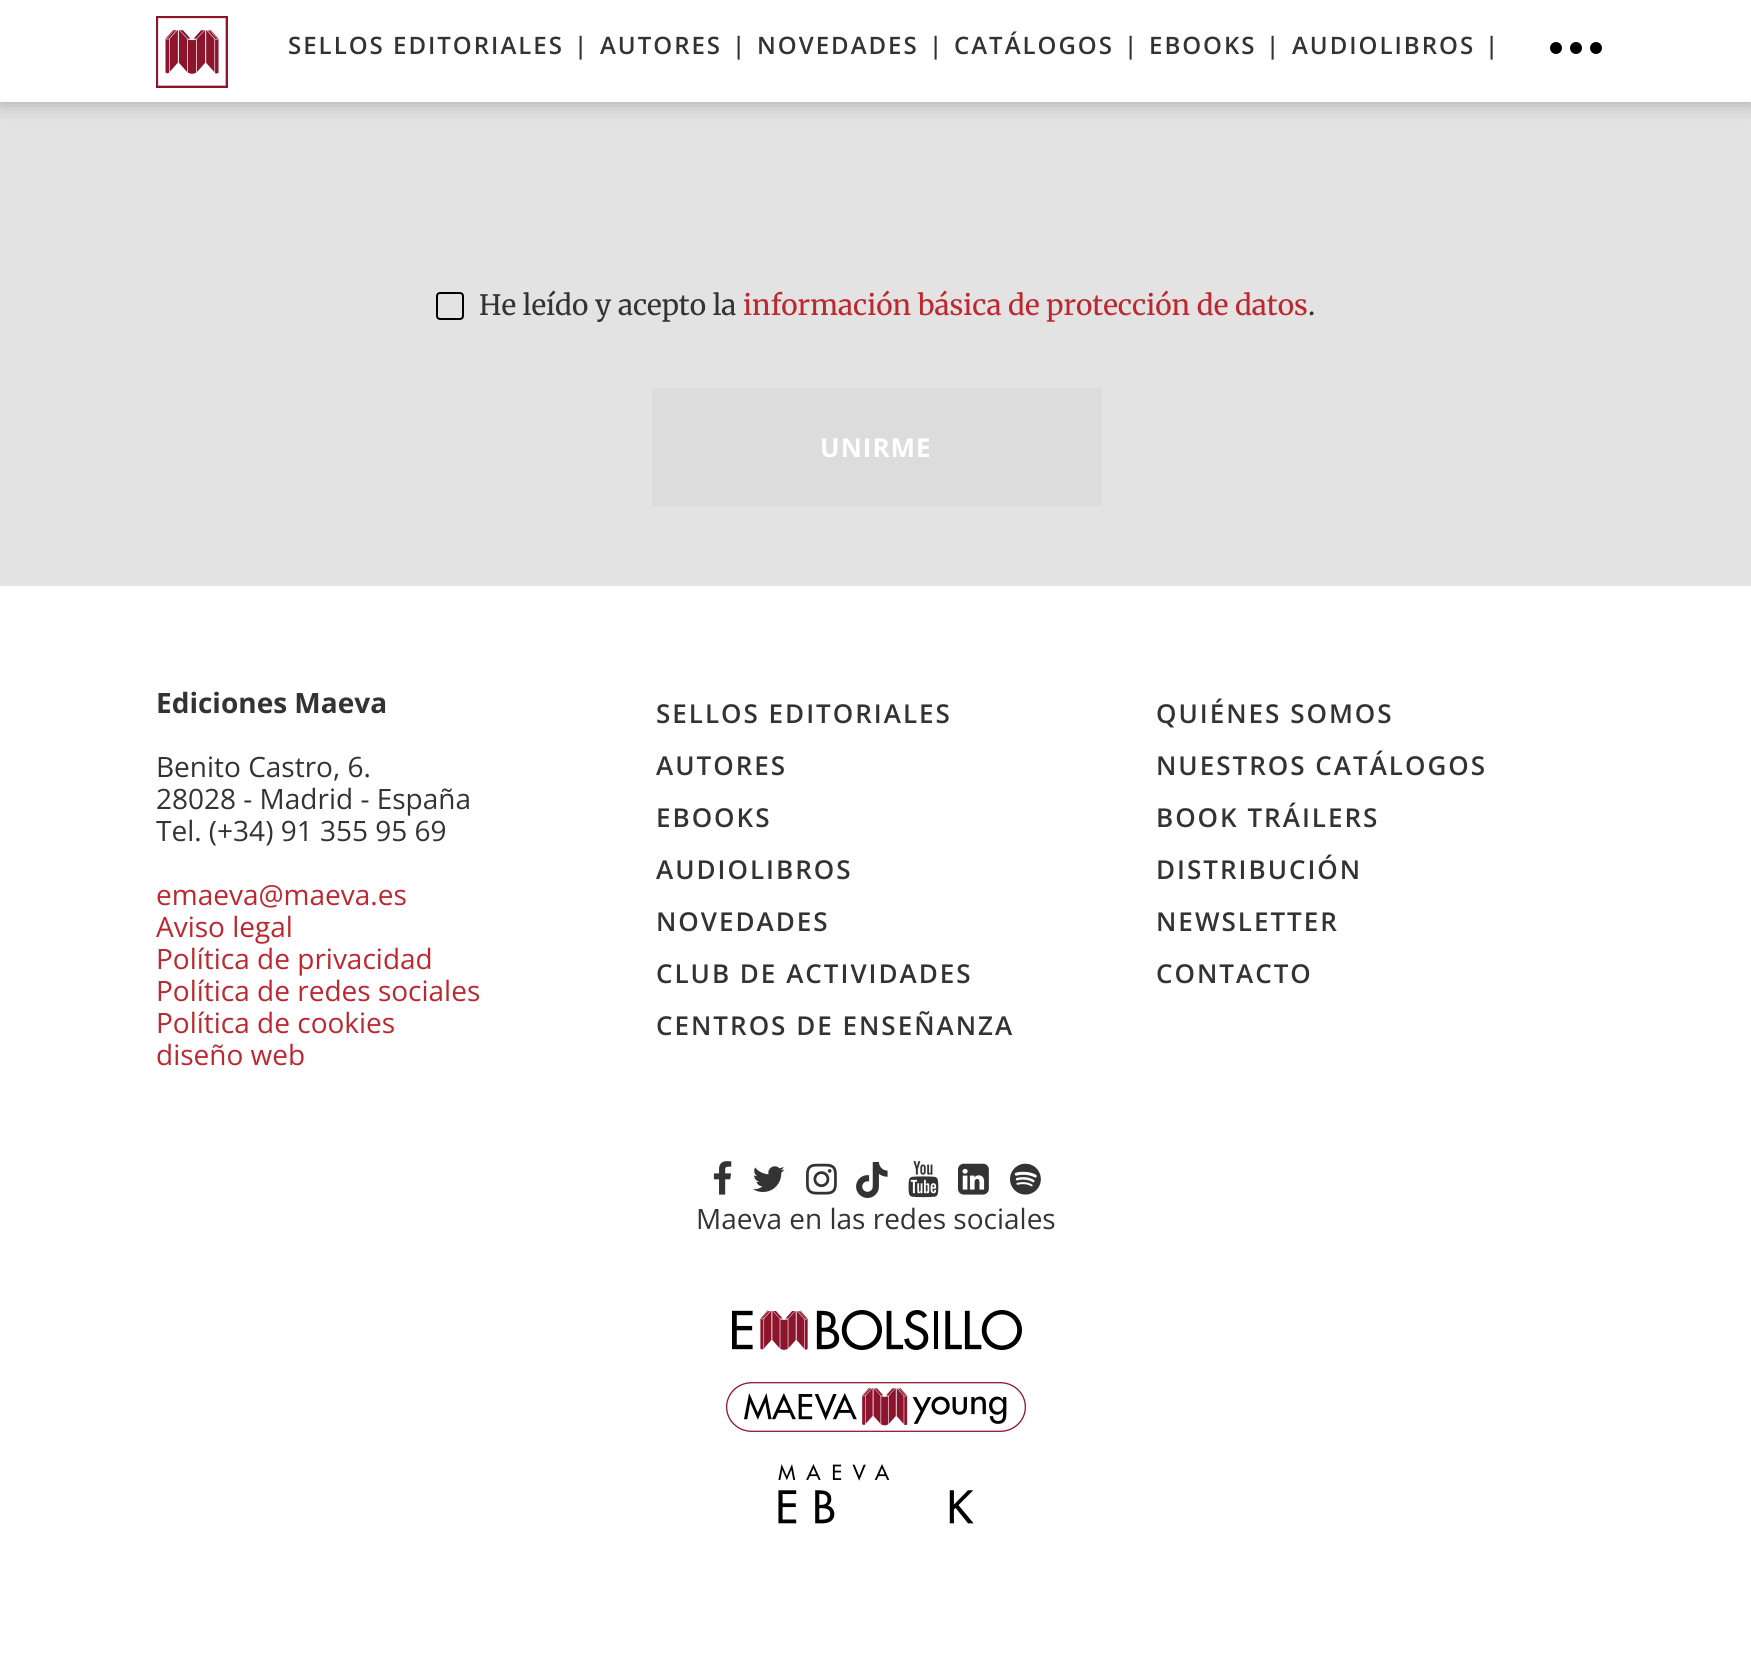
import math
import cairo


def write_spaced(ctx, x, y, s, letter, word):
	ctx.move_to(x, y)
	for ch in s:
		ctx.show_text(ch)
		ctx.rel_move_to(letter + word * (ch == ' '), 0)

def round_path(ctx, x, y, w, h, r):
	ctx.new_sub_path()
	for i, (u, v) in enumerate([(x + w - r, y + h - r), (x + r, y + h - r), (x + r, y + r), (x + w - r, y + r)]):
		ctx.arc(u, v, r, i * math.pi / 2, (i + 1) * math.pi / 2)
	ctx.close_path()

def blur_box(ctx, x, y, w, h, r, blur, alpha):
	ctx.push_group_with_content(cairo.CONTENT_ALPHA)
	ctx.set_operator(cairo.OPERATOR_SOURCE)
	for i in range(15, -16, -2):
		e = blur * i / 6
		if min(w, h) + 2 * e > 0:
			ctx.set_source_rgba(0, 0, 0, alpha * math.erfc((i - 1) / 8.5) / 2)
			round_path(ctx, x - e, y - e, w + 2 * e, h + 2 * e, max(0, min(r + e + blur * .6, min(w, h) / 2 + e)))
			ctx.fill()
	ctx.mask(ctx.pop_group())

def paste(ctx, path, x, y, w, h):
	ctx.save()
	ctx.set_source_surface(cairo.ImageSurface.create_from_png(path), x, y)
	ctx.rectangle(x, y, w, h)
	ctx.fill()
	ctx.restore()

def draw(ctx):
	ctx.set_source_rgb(1, 1, 1)
	ctx.paint()
	ctx.set_source_rgb(0.89, 0.89, 0.89)
	ctx.rectangle(0, 102, 1751, 484)
	ctx.fill()
	ctx.set_source_rgb(0, 0, 0)
	blur_box(ctx, 0, 0, 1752, 102, 0, 10, 0.3)
	ctx.set_source_rgb(1, 1, 1)
	ctx.rectangle(0, 0, 1751, 102)
	ctx.fill()
	paste(ctx, 'media/1.png', 156, 16, 72, 72)
	ctx.select_font_face('Open Sans SemiBold')
	ctx.set_font_size(24)
	ctx.set_source_rgb(0.2, 0.2, 0.2)
	for x, y, s in [
		(288, 54, 'SELLOS EDITORIALES'),
		(574, 54, '|'),
		(600, 54, 'AUTORES'),
		(732, 54, '|'),
		(757, 54, 'NOVEDADES'),
		(929, 54, '|'),
		(954, 54, 'CATÁLOGOS'),
		(1124, 54, '|'),
		(1149, 54, 'EBOOKS'),
		(1266, 54, '|'),
		(1292, 54, 'AUDIOLIBROS'),
		(1485, 54, '|'),
	]:
		write_spaced(ctx, x, y, s, 2, 0)
	ctx.set_source_rgb(0, 0, 0)
	ctx.new_path()
	ctx.arc(1556, 48, 6, 0, 2 * math.pi)
	ctx.fill()
	ctx.arc(1576, 48, 6, 0, 2 * math.pi)
	ctx.fill()
	ctx.arc(1596, 48, 6, 0, 2 * math.pi)
	ctx.fill()
	round_path(ctx, 437, 293, 26, 26, 3)
	ctx.stroke()
	ctx.select_font_face('Merriweather')
	ctx.set_font_size(28)
	ctx.set_source_rgb(0.2, 0.2, 0.2)
	ctx.move_to(479, 315)
	ctx.show_text('He leído y acepto la')
	ctx.set_source_rgb(0.741, 0.157, 0.188)
	ctx.move_to(743, 315)
	ctx.show_text('información básica de protección de datos')
	ctx.set_source_rgb(0.2, 0.2, 0.2)
	ctx.move_to(1308, 315)
	ctx.show_text('.')
	ctx.set_source_rgb(0.863, 0.863, 0.863)
	ctx.rectangle(652, 388, 450, 118)
	ctx.fill()
	ctx.select_font_face('Open Sans', cairo.FONT_SLANT_NORMAL, cairo.FONT_WEIGHT_BOLD)
	ctx.set_font_size(26)
	ctx.set_source_rgb(1, 1, 1)
	write_spaced(ctx, 820, 457, 'UNIRME', 1, 0)
	ctx.set_font_size(28)
	ctx.set_source_rgb(0.2, 0.2, 0.2)
	ctx.move_to(156, 713)
	ctx.show_text('Ediciones Maeva')
	ctx.select_font_face('Open Sans')
	for x, y, s in [
		(156, 777, 'Benito Castro, 6.'),
		(156, 809, '28028 - Madrid - España'),
		(156, 841, 'Tel. (+34) 91 355 95 69'),
	]:
		ctx.move_to(x, y)
		ctx.show_text(s)
	ctx.set_source_rgb(0.741, 0.157, 0.188)
	for x, y, s in [
		(156, 905, 'emaeva@maeva.es'),
		(156, 937, 'Aviso legal'),
		(156, 969, 'Política de privacidad'),
		(156, 1001, 'Política de redes sociales'),
		(156, 1033, 'Política de cookies'),
		(156, 1065, 'diseño web'),
	]:
		ctx.move_to(x, y)
		ctx.show_text(s)
	ctx.select_font_face('Open Sans SemiBold')
	ctx.set_font_size(26)
	ctx.set_source_rgb(0.2, 0.2, 0.2)
	for x, y, s in [
		(656, 723, 'SELLOS EDITORIALES'),
		(656, 775, 'AUTORES'),
		(656, 827, 'EBOOKS'),
		(656, 879, 'AUDIOLIBROS'),
		(656, 931, 'NOVEDADES'),
		(656, 983, 'CLUB DE ACTIVIDADES'),
		(656, 1035, 'CENTROS DE ENSEÑANZA'),
		(1156, 723, 'QUIÉNES SOMOS'),
		(1156, 775, 'NUESTROS CATÁLOGOS'),
		(1156, 827, 'BOOK TRÁILERS'),
		(1156, 879, 'DISTRIBUCIÓN'),
		(1156, 931, 'NEWSLETTER'),
		(1156, 983, 'CONTACTO'),
	]:
		write_spaced(ctx, x, y, s, 2, 0)
	paste(ctx, 'media/2.png', 713, 1161, 19, 34)
	paste(ctx, 'media/3.png', 753, 1166, 32, 26)
	paste(ctx, 'media/4.png', 806, 1163, 31, 32)
	paste(ctx, 'media/5.png', 856, 1162, 32, 36)
	paste(ctx, 'media/6.png', 908, 1161, 31, 37)
	paste(ctx, 'media/7.png', 958, 1163, 31, 32)
	paste(ctx, 'media/8.png', 1010, 1163, 31, 32)
	ctx.select_font_face('Open Sans')
	ctx.set_font_size(28)
	ctx.move_to(696, 1229)
	ctx.show_text('Maeva en las redes sociales')
	paste(ctx, 'media/9.png', 732, 1310, 290, 40)
	paste(ctx, 'media/10.png', 726, 1382, 300, 50)
	paste(ctx, 'media/11.png', 778, 1464, 196, 60)


surface = cairo.ImageSurface(cairo.FORMAT_RGB24, 1751, 1659)
ctx = cairo.Context(surface)
options = cairo.FontOptions()
options.set_hint_metrics(cairo.HINT_METRICS_OFF)
options.set_hint_style(cairo.HINT_STYLE_NONE)
ctx.set_font_options(options)
ctx.set_miter_limit(4)
draw(ctx)
surface.write_to_png('image.png')
